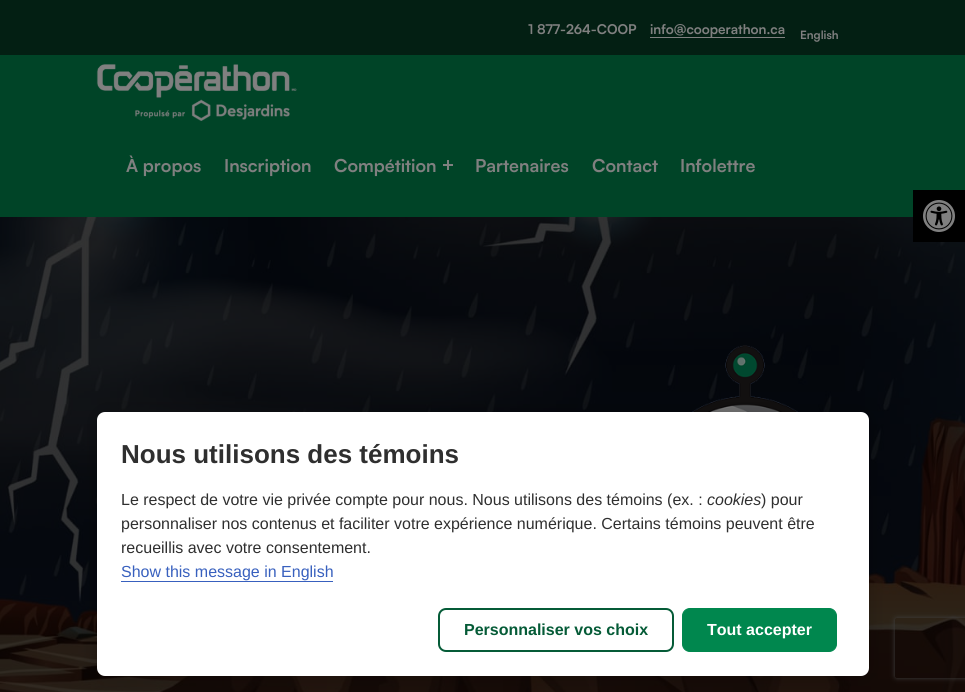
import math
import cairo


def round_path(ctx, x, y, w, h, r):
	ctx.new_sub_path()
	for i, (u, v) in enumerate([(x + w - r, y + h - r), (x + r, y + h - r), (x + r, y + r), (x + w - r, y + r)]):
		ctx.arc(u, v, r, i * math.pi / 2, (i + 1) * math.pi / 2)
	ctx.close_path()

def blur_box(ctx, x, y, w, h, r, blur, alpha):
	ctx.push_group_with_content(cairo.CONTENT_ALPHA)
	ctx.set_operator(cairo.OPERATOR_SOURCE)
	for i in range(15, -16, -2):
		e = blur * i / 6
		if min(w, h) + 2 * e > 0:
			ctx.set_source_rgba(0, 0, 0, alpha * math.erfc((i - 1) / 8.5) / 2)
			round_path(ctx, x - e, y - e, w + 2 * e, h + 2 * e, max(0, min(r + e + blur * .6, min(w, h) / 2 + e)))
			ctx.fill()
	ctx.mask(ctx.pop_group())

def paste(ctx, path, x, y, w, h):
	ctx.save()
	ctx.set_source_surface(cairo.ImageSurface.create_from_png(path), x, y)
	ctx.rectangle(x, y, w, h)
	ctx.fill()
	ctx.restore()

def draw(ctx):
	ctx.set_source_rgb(1, 1, 1)
	ctx.paint()
	ctx.set_source_rgb(0.012, 0.122, 0.075)
	ctx.rectangle(0, 0, 965, 55)
	ctx.fill()
	ctx.select_font_face('Satoshi', cairo.FONT_SLANT_NORMAL, cairo.FONT_WEIGHT_BOLD)
	ctx.set_font_size(13.4)
	ctx.set_source_rgb(0.502, 0.502, 0.502)
	ctx.move_to(528, 34)
	ctx.show_text('1 877-264-COOP')
	ctx.rectangle(650, 37, 135, 1)
	ctx.fill()
	ctx.move_to(650, 34)
	ctx.show_text('info@cooperathon.ca')
	ctx.set_font_size(11.5)
	ctx.move_to(800, 39)
	ctx.show_text('English')
	ctx.set_source_rgb(0, 0.267, 0.153)
	ctx.rectangle(0, 55, 965, 162)
	ctx.fill()
	paste(ctx, 'media/1.png', 96, 64, 201, 57)
	ctx.set_font_size(17.75)
	ctx.set_source_rgb(0.502, 0.502, 0.502)
	for x, y, s in [
		(126, 172, 'À propos'),
		(224, 172, 'Inscription'),
		(334, 172, 'Compétition'),
	]:
		ctx.move_to(x, y)
		ctx.show_text(s)
	ctx.rectangle(443, 164, 10, 2)
	ctx.fill()
	ctx.rectangle(447, 160, 2, 10)
	ctx.fill()
	for x, y, s in [
		(475, 172, 'Partenaires'),
		(592, 172, 'Contact'),
		(680, 172, 'Infolettre'),
	]:
		ctx.move_to(x, y)
		ctx.show_text(s)
	paste(ctx, 'media/2.png', 0, 217, 965, 475)
	paste(ctx, 'media/3.png', 692, 345, 106, 67)
	ctx.set_source_rgb(0, 0, 0)
	ctx.rectangle(913, 190, 52, 52)
	ctx.fill()
	paste(ctx, 'media/4.png', 923, 200, 32, 32)
	ctx.set_source_rgb(0, 0, 0)
	blur_box(ctx, 97, 412, 772, 264, 8, 9, 0.2)
	ctx.set_source_rgb(1, 1, 1)
	round_path(ctx, 97, 412, 772, 264, 8)
	ctx.fill()
	ctx.select_font_face('Liberation Sans', cairo.FONT_SLANT_NORMAL, cairo.FONT_WEIGHT_BOLD)
	ctx.set_font_size(26)
	ctx.set_source_rgb(0.184, 0.184, 0.184)
	ctx.move_to(121, 463)
	ctx.show_text('Nous utilisons des témoins')
	ctx.select_font_face('Liberation Sans')
	ctx.set_font_size(16)
	ctx.move_to(121, 505)
	ctx.show_text('Le respect de votre vie privée compte pour nous. Nous utilisons des témoins (ex. :')
	ctx.select_font_face('Liberation Sans', cairo.FONT_SLANT_ITALIC)
	ctx.move_to(707, 505)
	ctx.show_text('cookies')
	ctx.select_font_face('Liberation Sans')
	for x, y, s in [
		(761, 505, ') pour'),
		(121, 529, 'personnaliser nos contenus et faciliter votre expérience numérique. Certains témoins peuvent être'),
		(121, 553, 'recueillis avec votre consentement.'),
	]:
		ctx.move_to(x, y)
		ctx.show_text(s)
	ctx.set_source_rgb(0.22, 0.376, 0.745)
	ctx.move_to(121, 577)
	ctx.show_text('Show this message in English')
	ctx.rectangle(121, 581, 212, 1)
	ctx.fill()
	round_path(ctx, 439, 609, 234, 42, 7)
	ctx.set_source_rgb(0.02, 0.357, 0.216)
	ctx.stroke()
	ctx.select_font_face('Liberation Sans', cairo.FONT_SLANT_NORMAL, cairo.FONT_WEIGHT_BOLD)
	ctx.move_to(464, 635)
	ctx.show_text('Personnaliser vos choix')
	ctx.set_source_rgb(0, 0.529, 0.306)
	round_path(ctx, 682.5, 608.5, 154, 43, 7.5)
	ctx.fill_preserve()
	ctx.set_line_width(1)
	ctx.stroke()
	ctx.set_source_rgb(1, 1, 1)
	ctx.move_to(707, 635)
	ctx.show_text('Tout accepter')
	ctx.save()
	ctx.set_fill_rule(cairo.FILL_RULE_EVEN_ODD)
	ctx.new_path()
	ctx.move_to(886, 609)
	ctx.line_to(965, 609)
	ctx.line_to(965, 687)
	ctx.line_to(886, 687)
	ctx.close_path()
	ctx.move_to(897, 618)
	ctx.line_to(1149, 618)
	ctx.curve_to(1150, 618, 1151, 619, 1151, 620)
	ctx.line_to(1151, 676)
	ctx.curve_to(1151, 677, 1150, 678, 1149, 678)
	ctx.line_to(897, 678)
	ctx.curve_to(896, 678, 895, 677, 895, 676)
	ctx.line_to(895, 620)
	ctx.curve_to(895, 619, 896, 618, 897, 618)
	ctx.close_path()
	ctx.clip()
	ctx.set_source_rgb(0.251, 0.251, 0.251)
	blur_box(ctx, 895, 618, 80, 60, 2, 2.5, 1)
	ctx.restore()


surface = cairo.ImageSurface(cairo.FORMAT_RGB24, 965, 692)
ctx = cairo.Context(surface)
options = cairo.FontOptions()
options.set_hint_metrics(cairo.HINT_METRICS_OFF)
options.set_hint_style(cairo.HINT_STYLE_NONE)
ctx.set_font_options(options)
ctx.set_miter_limit(4)
draw(ctx)
surface.write_to_png('image.png')
